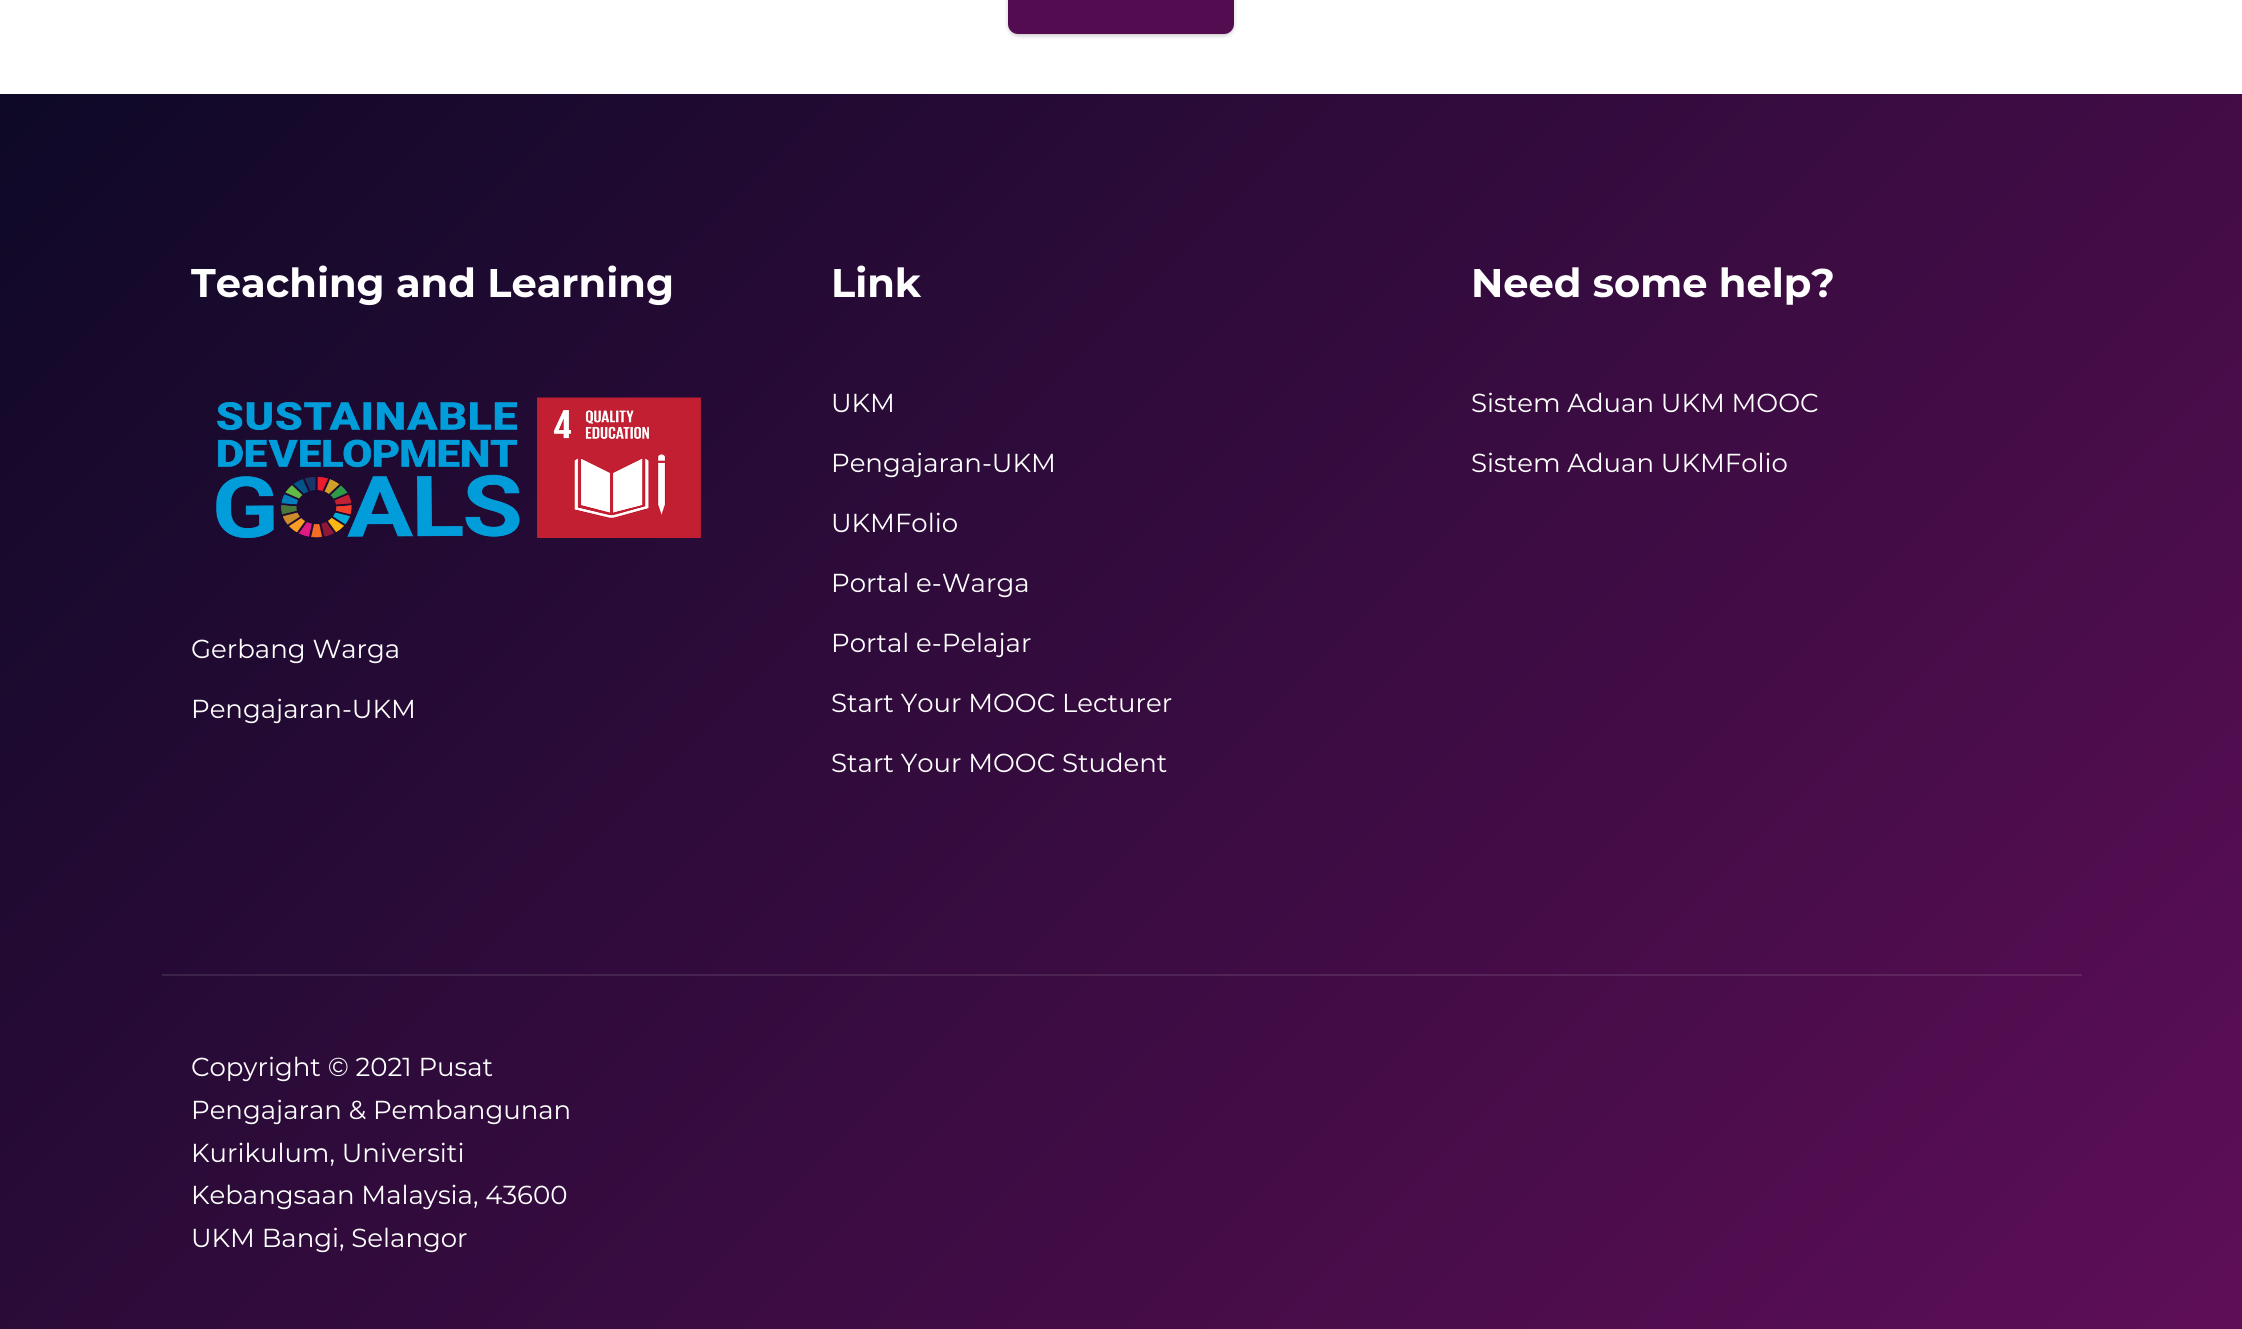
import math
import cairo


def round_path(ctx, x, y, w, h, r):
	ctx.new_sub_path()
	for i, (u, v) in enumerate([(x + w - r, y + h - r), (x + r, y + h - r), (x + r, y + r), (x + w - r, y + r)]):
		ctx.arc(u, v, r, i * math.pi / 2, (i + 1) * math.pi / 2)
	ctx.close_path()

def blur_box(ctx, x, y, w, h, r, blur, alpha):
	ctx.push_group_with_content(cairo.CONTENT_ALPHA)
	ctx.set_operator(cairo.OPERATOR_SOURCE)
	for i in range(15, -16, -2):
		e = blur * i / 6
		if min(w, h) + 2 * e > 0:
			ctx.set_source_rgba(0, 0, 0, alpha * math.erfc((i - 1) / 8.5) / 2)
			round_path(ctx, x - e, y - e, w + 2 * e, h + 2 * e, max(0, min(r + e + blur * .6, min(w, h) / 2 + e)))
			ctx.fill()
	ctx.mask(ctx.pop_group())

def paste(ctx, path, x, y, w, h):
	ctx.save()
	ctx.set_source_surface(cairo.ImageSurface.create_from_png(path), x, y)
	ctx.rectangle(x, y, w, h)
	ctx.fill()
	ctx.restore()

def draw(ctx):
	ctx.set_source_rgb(1, 1, 1)
	ctx.paint()
	ctx.set_source_rgb(0, 0, 0)
	blur_box(ctx, 1008, -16, 226, 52, 10, 2, 0.2)
	ctx.set_source_rgb(0.329, 0.047, 0.318)
	round_path(ctx, 1010, -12, 222, 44, 8)
	ctx.fill_preserve()
	ctx.set_line_width(4)
	ctx.stroke()
	gradient = cairo.LinearGradient(1990, 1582, 252, -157)
	gradient.add_color_stop_rgba(0, 0.369, 0.055, 0.341, 1)
	gradient.add_color_stop_rgba(1, 0.055, 0.035, 0.153, 1)
	ctx.set_source(gradient)
	ctx.rectangle(0, 94, 2242, 1235)
	ctx.fill()
	gradient = cairo.LinearGradient(1990, 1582, 252, -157)
	gradient.add_color_stop_rgba(0, 0.431, 0.149, 0.408, 1)
	gradient.add_color_stop_rgba(1, 0.149, 0.133, 0.239, 1)
	ctx.set_source(gradient)
	ctx.rectangle(162, 974, 1920, 2)
	ctx.fill()
	ctx.select_font_face('Montserrat', cairo.FONT_SLANT_NORMAL, cairo.FONT_WEIGHT_BOLD)
	ctx.set_font_size(40)
	ctx.set_source_rgb(1, 1, 1)
	ctx.move_to(191, 297)
	ctx.show_text('Teaching and Learning')
	paste(ctx, 'media/1.png', 216, 397, 485, 141)
	ctx.select_font_face('Montserrat Thin')
	ctx.set_font_size(26)
	ctx.move_to(191, 658)
	ctx.show_text('Gerbang Warga')
	ctx.move_to(191, 718)
	ctx.show_text('Pengajaran-UKM')
	ctx.select_font_face('Montserrat', cairo.FONT_SLANT_NORMAL, cairo.FONT_WEIGHT_BOLD)
	ctx.set_font_size(40)
	ctx.move_to(831, 297)
	ctx.show_text('Link')
	ctx.select_font_face('Montserrat Thin')
	ctx.set_font_size(26)
	for x, y, s in [
		(831, 412, 'UKM'),
		(831, 472, 'Pengajaran-UKM'),
		(831, 532, 'UKMFolio'),
		(831, 592, 'Portal e-Warga'),
		(831, 652, 'Portal e-Pelajar'),
		(831, 712, 'Start Your MOOC Lecturer'),
		(831, 772, 'Start Your MOOC Student'),
	]:
		ctx.move_to(x, y)
		ctx.show_text(s)
	ctx.select_font_face('Montserrat', cairo.FONT_SLANT_NORMAL, cairo.FONT_WEIGHT_BOLD)
	ctx.set_font_size(40)
	ctx.move_to(1471, 297)
	ctx.show_text('Need some help?')
	ctx.select_font_face('Montserrat Thin')
	ctx.set_font_size(26)
	for x, y, s in [
		(1471, 412, 'Sistem Aduan UKM MOOC'),
		(1471, 472, 'Sistem Aduan UKMFolio'),
		(191, 1076, 'Copyright © 2021 Pusat'),
		(191, 1119, 'Pengajaran & Pembangunan'),
		(191, 1162, 'Kurikulum, Universiti'),
		(191, 1204, 'Kebangsaan Malaysia, 43600'),
		(191, 1247, 'UKM Bangi, Selangor'),
	]:
		ctx.move_to(x, y)
		ctx.show_text(s)


surface = cairo.ImageSurface(cairo.FORMAT_RGB24, 2242, 1329)
ctx = cairo.Context(surface)
options = cairo.FontOptions()
options.set_hint_metrics(cairo.HINT_METRICS_OFF)
options.set_hint_style(cairo.HINT_STYLE_NONE)
ctx.set_font_options(options)
ctx.set_miter_limit(4)
draw(ctx)
surface.write_to_png('image.png')
